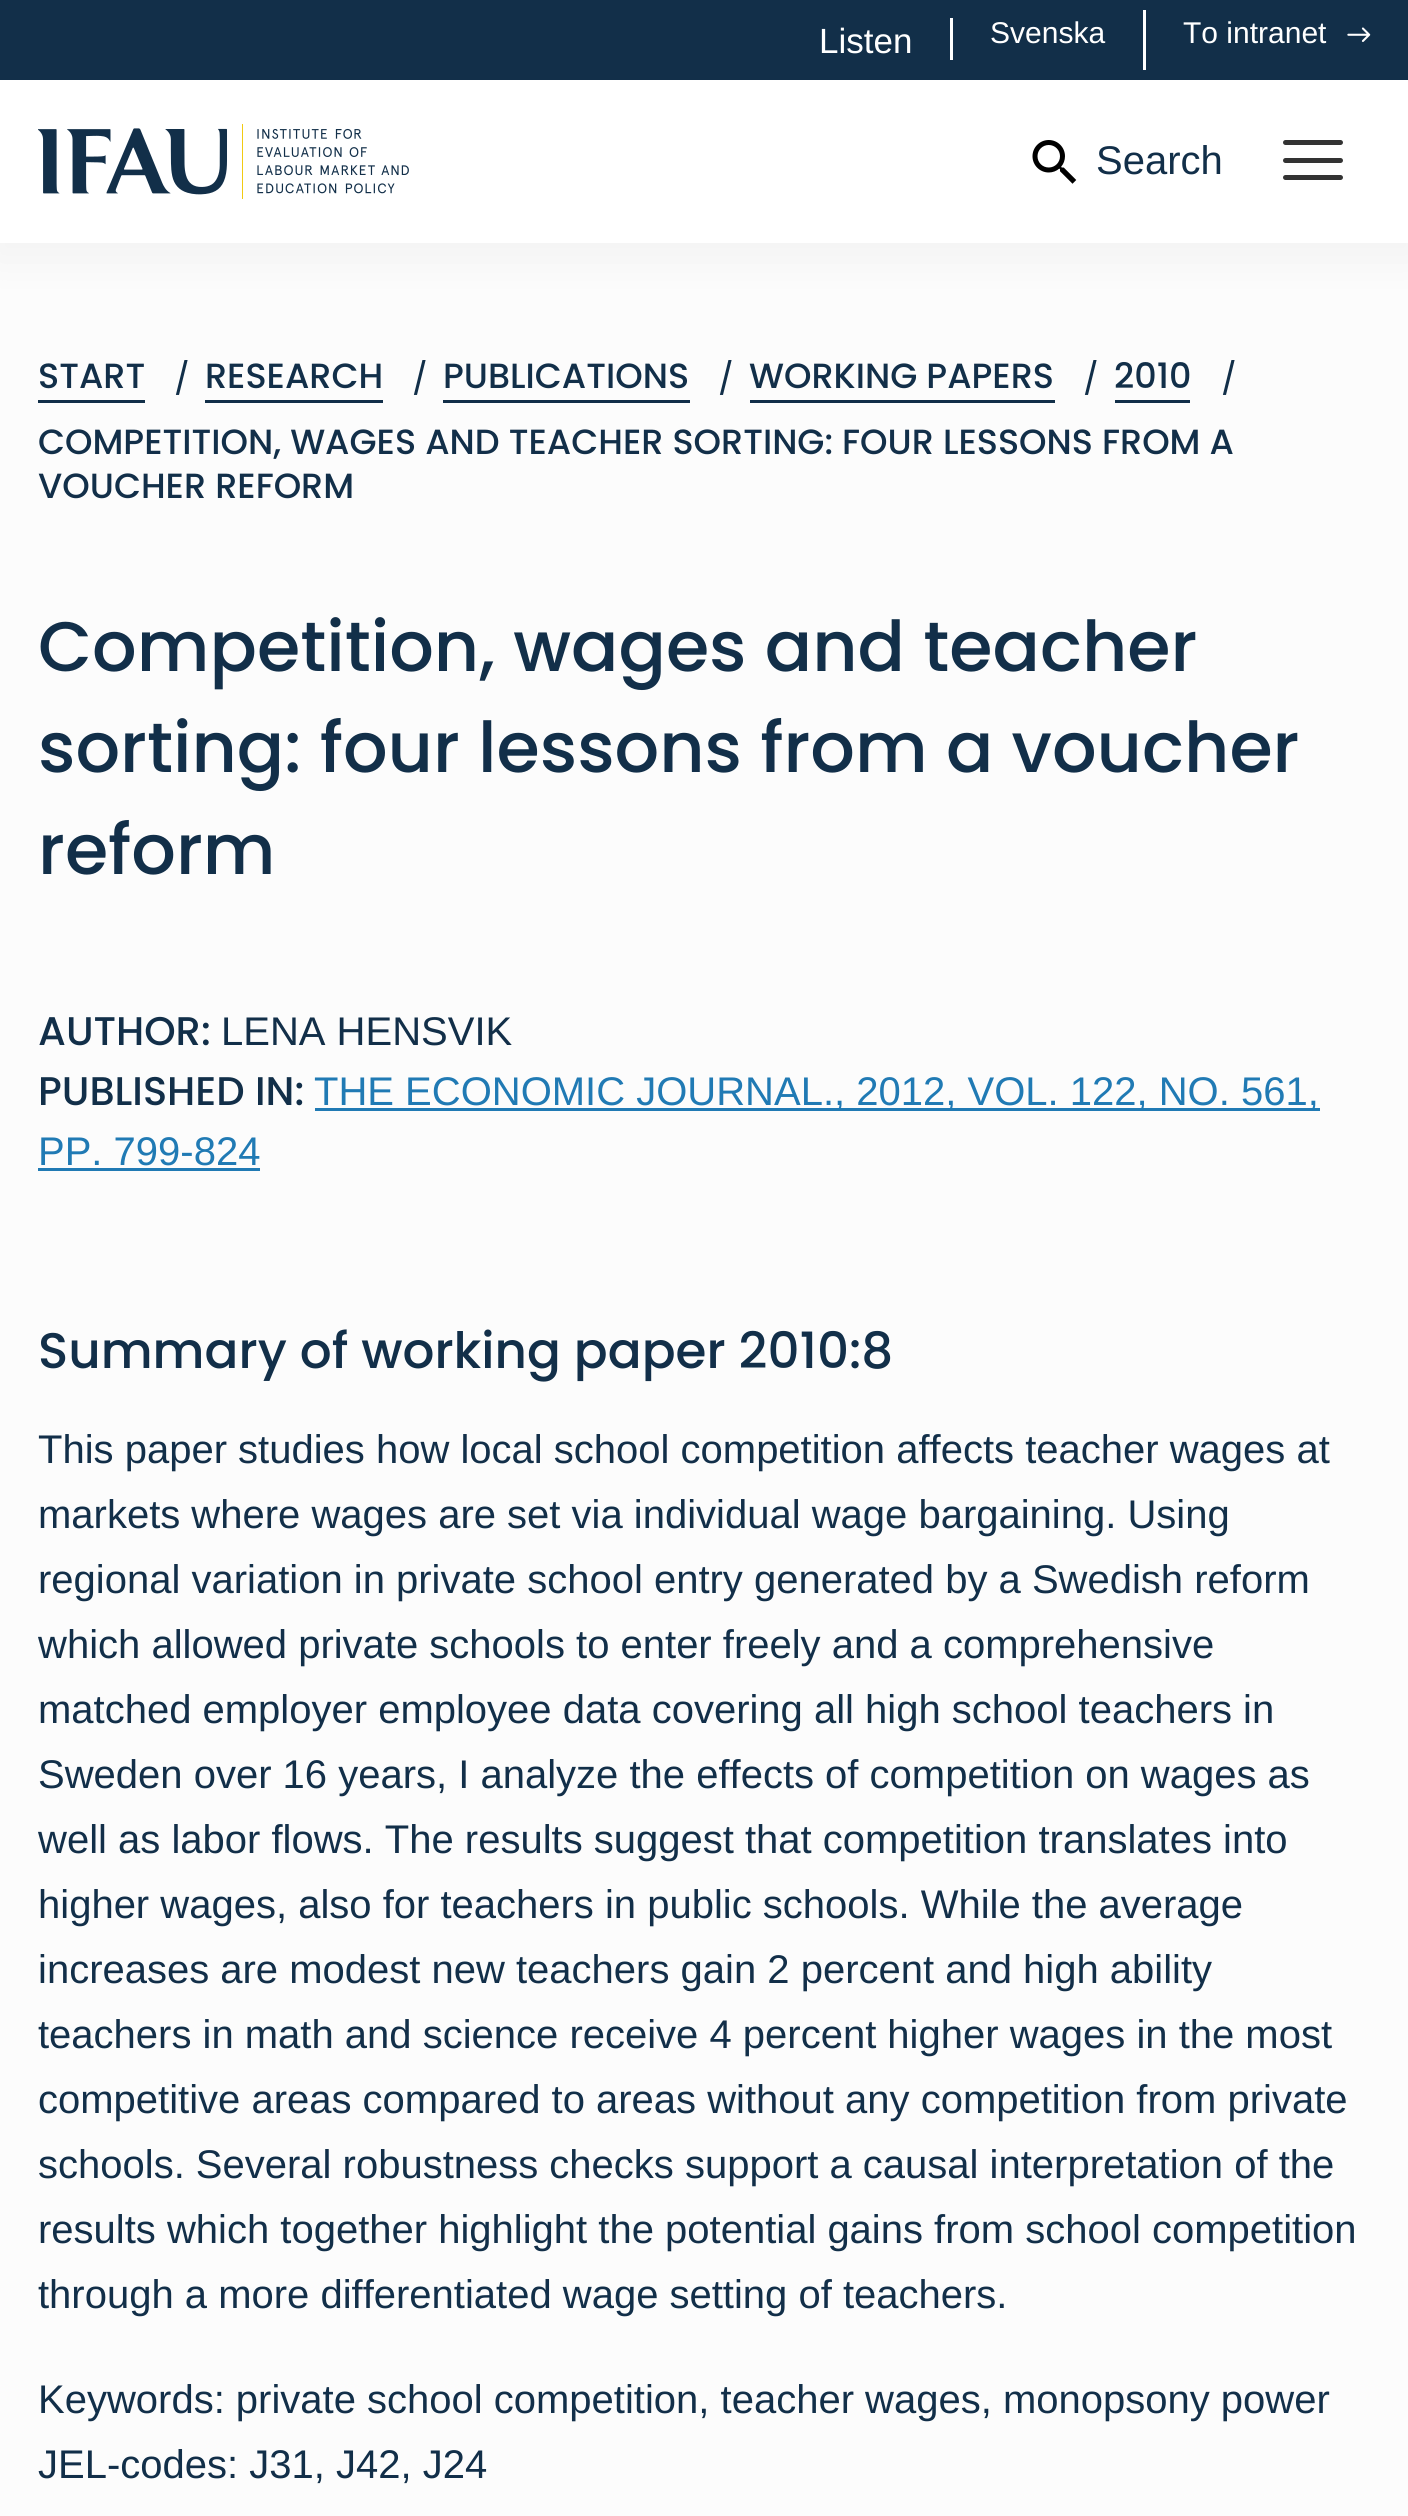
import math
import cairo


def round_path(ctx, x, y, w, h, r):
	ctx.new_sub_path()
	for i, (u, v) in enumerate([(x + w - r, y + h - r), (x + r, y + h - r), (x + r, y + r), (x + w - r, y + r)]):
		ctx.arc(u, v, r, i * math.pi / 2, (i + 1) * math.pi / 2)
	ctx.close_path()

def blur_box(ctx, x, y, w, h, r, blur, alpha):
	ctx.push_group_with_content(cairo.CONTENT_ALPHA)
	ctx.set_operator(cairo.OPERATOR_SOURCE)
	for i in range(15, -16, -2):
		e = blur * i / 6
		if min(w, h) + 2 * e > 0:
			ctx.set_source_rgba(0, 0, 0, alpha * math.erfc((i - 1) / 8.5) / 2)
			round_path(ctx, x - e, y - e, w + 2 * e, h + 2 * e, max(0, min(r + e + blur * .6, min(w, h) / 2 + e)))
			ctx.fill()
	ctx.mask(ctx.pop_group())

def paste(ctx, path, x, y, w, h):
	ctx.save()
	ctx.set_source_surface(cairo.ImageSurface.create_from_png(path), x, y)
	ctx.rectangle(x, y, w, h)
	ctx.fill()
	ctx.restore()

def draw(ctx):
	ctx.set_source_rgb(0.988, 0.988, 0.988)
	ctx.paint()
	ctx.set_source_rgb(0, 0, 0)
	blur_box(ctx, -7, 3, 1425, 257, 0, 25, 0.04)
	ctx.set_source_rgb(0.071, 0.184, 0.286)
	ctx.rectangle(0, 0, 1408, 80)
	ctx.fill()
	ctx.select_font_face('Liberation Sans')
	ctx.set_font_size(35)
	ctx.set_source_rgb(1, 1, 1)
	ctx.move_to(819, 53)
	ctx.show_text('Listen')
	ctx.rectangle(950, 18, 3, 42)
	ctx.fill()
	ctx.set_font_size(30)
	ctx.move_to(990, 43)
	ctx.show_text('Svenska')
	ctx.rectangle(1143, 10, 3, 60)
	ctx.fill()
	ctx.move_to(1183, 43)
	ctx.show_text('To intranet')
	paste(ctx, 'media/1.png', 1347, 27, 24, 15)
	ctx.rectangle(0, 80, 1408, 163)
	ctx.fill()
	paste(ctx, 'media/2.png', 38, 124, 371, 75)
	paste(ctx, 'media/3.png', 1032, 140, 45, 44)
	ctx.set_font_size(40)
	ctx.set_source_rgb(0.071, 0.184, 0.286)
	ctx.move_to(1096, 174)
	ctx.show_text('Search')
	ctx.set_source_rgb(0.2, 0.2, 0.2)
	round_path(ctx, 1283, 158, 60, 5, 2.5)
	ctx.fill()
	round_path(ctx, 1283, 140, 60, 5, 2.5)
	ctx.fill()
	round_path(ctx, 1283, 175, 60, 5, 2.5)
	ctx.fill()
	ctx.select_font_face('Poppins Medium')
	ctx.set_font_size(35)
	ctx.set_source_rgb(0.071, 0.184, 0.286)
	ctx.move_to(38, 388)
	ctx.show_text('START')
	ctx.rectangle(38, 400, 107, 3)
	ctx.fill()
	ctx.save()
	ctx.rectangle(175, 360, 15, 38)
	ctx.clip()
	ctx.select_font_face('Poppins')
	ctx.move_to(174, 389)
	ctx.show_text('/')
	ctx.restore()
	ctx.move_to(205, 388)
	ctx.show_text('RESEARCH')
	ctx.rectangle(205, 400, 178, 3)
	ctx.fill()
	ctx.save()
	ctx.rectangle(413, 360, 17, 38)
	ctx.clip()
	ctx.select_font_face('Poppins')
	ctx.move_to(412, 389)
	ctx.show_text('/')
	ctx.restore()
	ctx.move_to(443, 388)
	ctx.show_text('PUBLICATIONS')
	ctx.rectangle(443, 400, 247, 3)
	ctx.fill()
	ctx.save()
	ctx.rectangle(718, 360, 17, 38)
	ctx.clip()
	ctx.select_font_face('Poppins')
	ctx.move_to(718, 389)
	ctx.show_text('/')
	ctx.restore()
	ctx.move_to(749, 388)
	ctx.show_text('WORKING PAPERS')
	ctx.rectangle(750, 400, 305, 3)
	ctx.fill()
	ctx.save()
	ctx.rectangle(1083, 360, 17, 38)
	ctx.clip()
	ctx.select_font_face('Poppins')
	ctx.move_to(1083, 389)
	ctx.show_text('/')
	ctx.restore()
	ctx.move_to(1114, 388)
	ctx.show_text('2010')
	ctx.rectangle(1115, 400, 75, 3)
	ctx.fill()
	ctx.save()
	ctx.rectangle(1220, 360, 18, 38)
	ctx.clip()
	ctx.select_font_face('Poppins')
	ctx.move_to(1221, 389)
	ctx.show_text('/')
	ctx.restore()
	ctx.move_to(38, 454)
	ctx.show_text('COMPETITION, WAGES AND TEACHER SORTING: FOUR LESSONS FROM A')
	ctx.move_to(38, 498)
	ctx.show_text('VOUCHER REFORM')
	ctx.set_font_size(70)
	for x, y, s in [
		(38, 671, 'Competition, wages and teacher'),
		(38, 772, 'sorting: four lessons from a voucher'),
		(38, 874, 'reform'),
	]:
		ctx.move_to(x, y)
		ctx.show_text(s)
	ctx.set_font_size(40)
	ctx.move_to(38, 1045)
	ctx.show_text('AUTHOR:')
	ctx.select_font_face('Liberation Sans')
	ctx.move_to(221, 1045)
	ctx.show_text('LENA HENSVIK')
	ctx.select_font_face('Poppins Medium')
	ctx.move_to(38, 1105)
	ctx.show_text('PUBLISHED IN:')
	ctx.set_source_rgb(0.125, 0.478, 0.706)
	ctx.rectangle(315, 1108, 1005, 3)
	ctx.fill()
	ctx.select_font_face('Liberation Sans')
	ctx.move_to(314, 1105)
	ctx.show_text('THE ECONOMIC JOURNAL., 2012, VOL. 122, NO. 561,')
	ctx.move_to(38, 1165)
	ctx.show_text('PP. 799-824')
	ctx.rectangle(38, 1168, 222, 3)
	ctx.fill()
	ctx.select_font_face('Poppins Medium')
	ctx.set_font_size(50)
	ctx.set_source_rgb(0.071, 0.184, 0.286)
	ctx.move_to(38, 1368)
	ctx.show_text('Summary of working paper 2010:8')
	ctx.select_font_face('Liberation Sans')
	ctx.set_font_size(40)
	for x, y, s in [
		(38, 1463, 'This paper studies how local school competition affects teacher wages at'),
		(38, 1528, 'markets where wages are set via individual wage bargaining. Using'),
		(38, 1593, 'regional variation in private school entry generated by a Swedish reform'),
		(38, 1658, 'which allowed private schools to enter freely and a comprehensive'),
		(38, 1723, 'matched employer employee data covering all high school teachers in'),
		(38, 1788, 'Sweden over 16 years, I analyze the effects of competition on wages as'),
		(38, 1853, 'well as labor flows. The results suggest that competition translates into'),
		(38, 1918, 'higher wages, also for teachers in public schools. While the average'),
		(38, 1983, 'increases are modest new teachers gain 2 percent and high ability'),
		(38, 2048, 'teachers in math and science receive 4 percent higher wages in the most'),
		(38, 2113, 'competitive areas compared to areas without any competition from private'),
		(38, 2178, 'schools. Several robustness checks support a causal interpretation of the'),
		(38, 2243, 'results which together highlight the potential gains from school competition'),
		(38, 2308, 'through a more differentiated wage setting of teachers.'),
		(38, 2413, 'Keywords: private school competition, teacher wages, monopsony power'),
		(38, 2478, 'JEL-codes: J31, J42, J24'),
	]:
		ctx.move_to(x, y)
		ctx.show_text(s)


surface = cairo.ImageSurface(cairo.FORMAT_RGB24, 1408, 2516)
ctx = cairo.Context(surface)
options = cairo.FontOptions()
options.set_hint_metrics(cairo.HINT_METRICS_OFF)
options.set_hint_style(cairo.HINT_STYLE_NONE)
ctx.set_font_options(options)
ctx.set_miter_limit(4)
draw(ctx)
surface.write_to_png('image.png')
